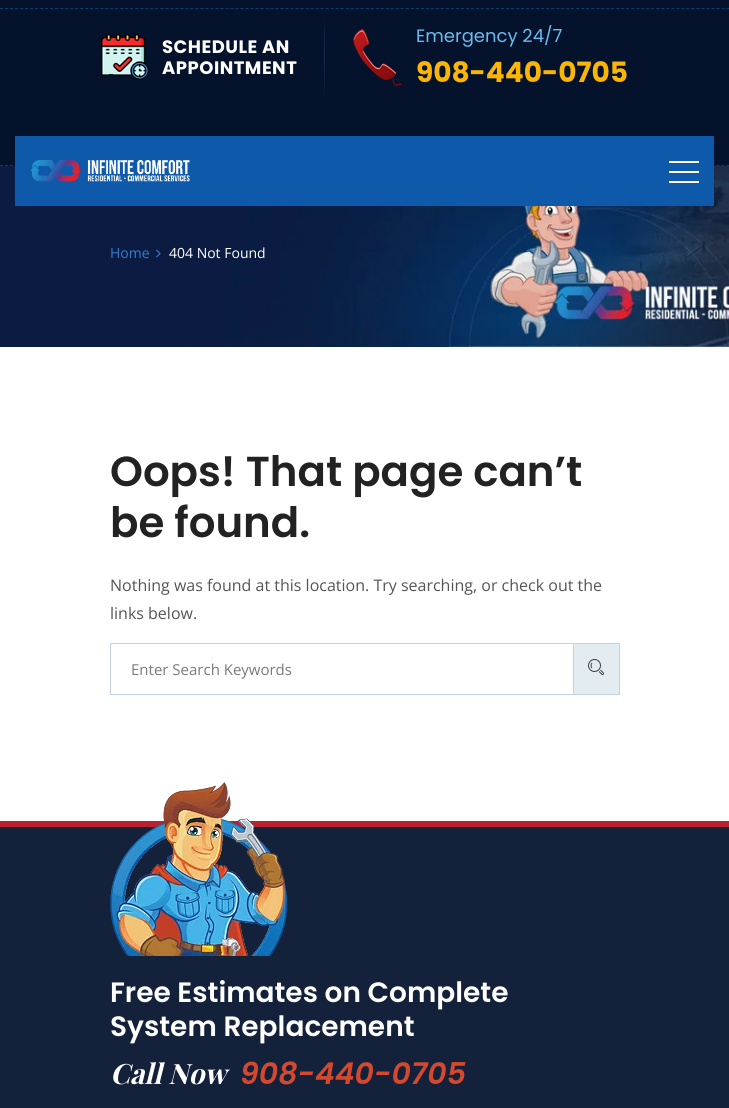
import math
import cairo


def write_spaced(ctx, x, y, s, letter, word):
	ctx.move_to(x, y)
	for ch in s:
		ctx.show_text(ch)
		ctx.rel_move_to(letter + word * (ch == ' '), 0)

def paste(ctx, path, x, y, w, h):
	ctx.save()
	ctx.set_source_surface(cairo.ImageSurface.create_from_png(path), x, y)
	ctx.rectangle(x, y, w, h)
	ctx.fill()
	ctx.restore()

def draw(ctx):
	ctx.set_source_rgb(1, 1, 1)
	ctx.paint()
	ctx.set_source_rgb(0.016, 0.071, 0.173)
	ctx.rectangle(0, 0, 729, 166)
	ctx.fill()
	ctx.new_path()
	ctx.move_to(0, 165.5)
	ctx.line_to(729, 165.5)
	ctx.set_source_rgb(0.039, 0.251, 0.427)
	ctx.set_line_width(1)
	ctx.set_dash([3, 2.01])
	ctx.stroke()
	ctx.new_path()
	ctx.move_to(0, 8.5)
	ctx.line_to(729, 8.5)
	ctx.stroke()
	paste(ctx, 'media/1.png', 101, 34, 48, 46)
	ctx.select_font_face('Poppins', cairo.FONT_SLANT_NORMAL, cairo.FONT_WEIGHT_BOLD)
	ctx.set_font_size(18)
	ctx.set_source_rgb(1, 1, 1)
	write_spaced(ctx, 162, 53, 'SCHEDULE AN', 0.5, 0)
	write_spaced(ctx, 162, 74, 'APPOINTMENT', 0.5, 0)
	paste(ctx, 'media/2.png', 324, 19, 2, 77)
	paste(ctx, 'media/3.png', 353, 29, 50, 57)
	ctx.select_font_face('Poppins')
	ctx.set_source_rgb(0.42, 0.733, 0.941)
	ctx.move_to(416, 42)
	ctx.show_text('Emergency 24/7')
	ctx.select_font_face('Poppins', cairo.FONT_SLANT_NORMAL, cairo.FONT_WEIGHT_BOLD)
	ctx.set_font_size(28)
	ctx.set_source_rgb(0.98, 0.71, 0.02)
	ctx.move_to(416, 82)
	ctx.show_text('908-440-0705')
	paste(ctx, 'media/5.png', 0, 166, 729, 181)
	ctx.set_source_rgb(0.055, 0.349, 0.663)
	ctx.rectangle(15, 136, 699, 70)
	ctx.fill()
	paste(ctx, 'media/4.png', 30, 160, 160, 22)
	ctx.set_source_rgb(1, 1, 1)
	ctx.rectangle(669, 171, 30, 2)
	ctx.rectangle(669, 161, 30, 2)
	ctx.rectangle(669, 181, 30, 2)
	ctx.fill()
	ctx.select_font_face('Open Sans')
	ctx.set_font_size(14)
	ctx.set_source_rgb(0.2, 0.498, 0.816)
	ctx.move_to(110, 258)
	ctx.show_text('Home')
	paste(ctx, 'media/6.png', 156, 249, 5, 9)
	ctx.set_source_rgb(1, 1, 1)
	ctx.move_to(169, 258)
	ctx.show_text('404 Not Found')
	ctx.select_font_face('Poppins SemiBold')
	ctx.set_font_size(41.9)
	ctx.set_source_rgb(0.133, 0.133, 0.133)
	ctx.move_to(110, 486)
	ctx.show_text('Oops! That page can’t')
	ctx.move_to(110, 537)
	ctx.show_text('be found.')
	ctx.select_font_face('Open Sans')
	ctx.set_font_size(16)
	ctx.set_source_rgb(0.333, 0.333, 0.333)
	ctx.move_to(110, 591)
	ctx.show_text('Nothing was found at this location. Try searching, or check out the')
	ctx.move_to(110, 619)
	ctx.show_text('links below.')
	ctx.rectangle(110.5, 643.5, 509, 51)
	ctx.set_source_rgb(0.761, 0.827, 0.871)
	ctx.set_dash([])
	ctx.stroke()
	ctx.set_font_size(15)
	ctx.set_source_rgb(0.478, 0.478, 0.478)
	ctx.move_to(131, 675)
	ctx.show_text('Enter Search Keywords')
	ctx.set_source_rgb(0.89, 0.922, 0.941)
	ctx.rectangle(573, 644, 46, 50)
	ctx.fill()
	ctx.set_source_rgb(0.761, 0.827, 0.871)
	ctx.new_path()
	ctx.move_to(573, 694)
	ctx.line_to(573, 644)
	ctx.line_to(574, 645)
	ctx.line_to(574, 693)
	ctx.close_path()
	ctx.fill()
	paste(ctx, 'media/7.png', 588, 659, 16, 16)
	ctx.set_source_rgb(0.075, 0.129, 0.231)
	ctx.rectangle(0, 827, 729, 281)
	ctx.fill()
	ctx.set_source_rgb(0.733, 0.125, 0.18)
	ctx.rectangle(0, 821, 729, 6)
	ctx.fill()
	paste(ctx, 'media/8.png', 110, 782, 177, 174)
	ctx.select_font_face('Poppins SemiBold')
	ctx.set_font_size(28)
	ctx.set_source_rgb(1, 1, 1)
	ctx.move_to(110, 1002)
	ctx.show_text('Free Estimates on Complete')
	ctx.move_to(110, 1036)
	ctx.show_text('System Replacement')
	ctx.select_font_face('Playfair Display', cairo.FONT_SLANT_ITALIC, cairo.FONT_WEIGHT_BOLD)
	ctx.move_to(110, 1084)
	ctx.show_text('Call Now')
	ctx.select_font_face('Poppins SemiBold', cairo.FONT_SLANT_ITALIC)
	ctx.set_font_size(30)
	ctx.set_source_rgb(0.831, 0.282, 0.18)
	ctx.move_to(240, 1084)
	ctx.show_text('908-440-0705')


surface = cairo.ImageSurface(cairo.FORMAT_RGB24, 729, 1108)
ctx = cairo.Context(surface)
options = cairo.FontOptions()
options.set_hint_metrics(cairo.HINT_METRICS_OFF)
options.set_hint_style(cairo.HINT_STYLE_NONE)
ctx.set_font_options(options)
ctx.set_miter_limit(4)
draw(ctx)
surface.write_to_png('image.png')
